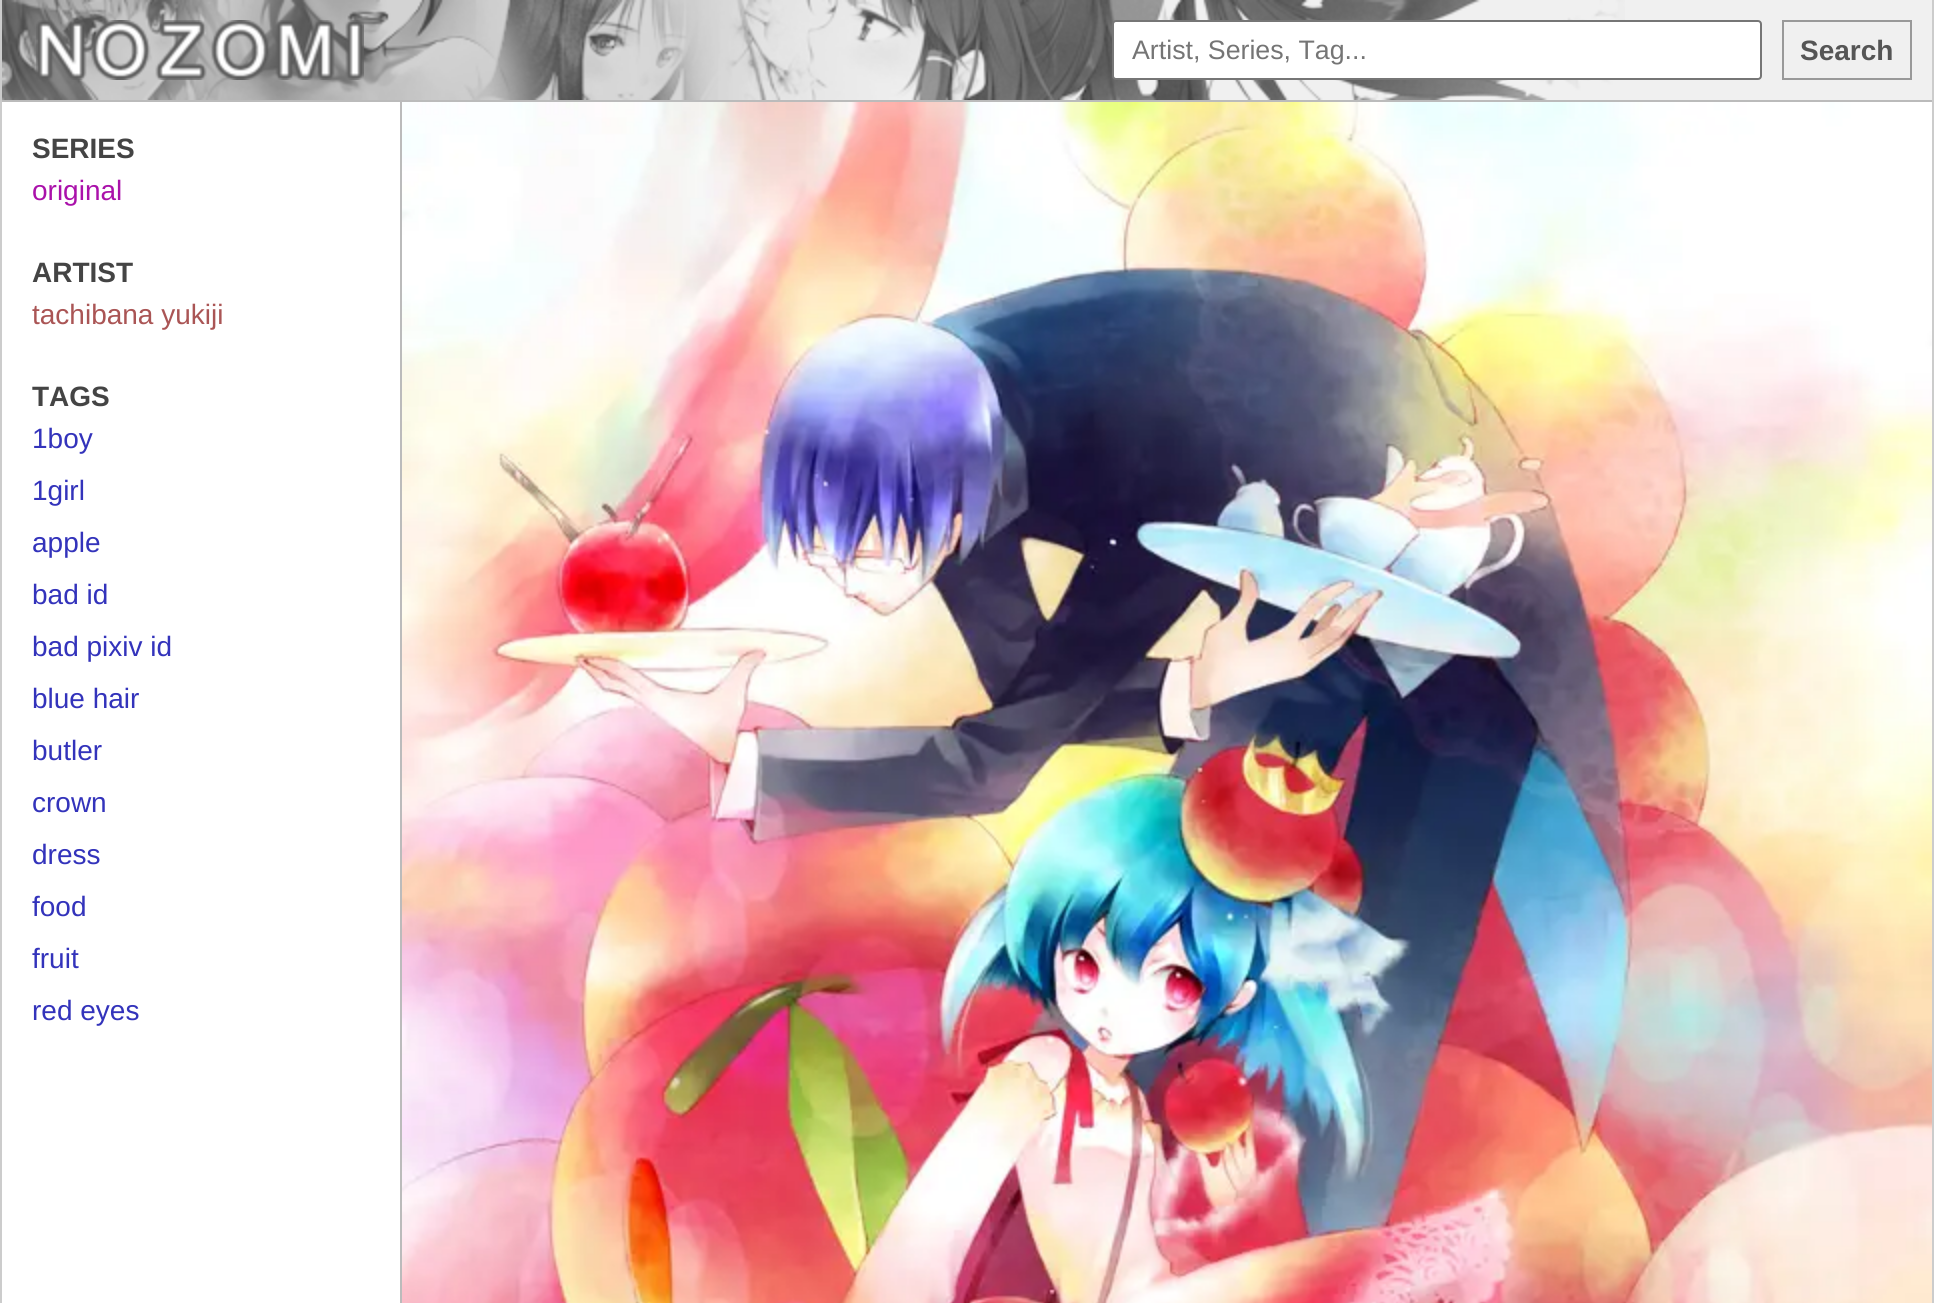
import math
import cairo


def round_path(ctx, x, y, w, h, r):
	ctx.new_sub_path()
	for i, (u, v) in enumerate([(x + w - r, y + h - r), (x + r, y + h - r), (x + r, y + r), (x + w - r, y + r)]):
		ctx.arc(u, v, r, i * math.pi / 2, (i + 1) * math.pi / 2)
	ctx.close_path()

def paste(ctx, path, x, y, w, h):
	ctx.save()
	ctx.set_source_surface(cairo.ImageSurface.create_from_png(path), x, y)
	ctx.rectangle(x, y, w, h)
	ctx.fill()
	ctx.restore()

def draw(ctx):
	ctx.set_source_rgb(1, 1, 1)
	ctx.paint()
	ctx.set_source_rgb(0.8, 0.8, 0.8)
	ctx.rectangle(1932, 0, 2, 1303)
	ctx.rectangle(0, 0, 2, 1303)
	ctx.fill()
	ctx.set_source_rgb(0.941, 0.941, 0.941)
	ctx.rectangle(1625, 0, 307, 100)
	ctx.fill()
	paste(ctx, 'media/1.png', 2, 0, 1623, 100)
	ctx.set_source_rgb(0.733, 0.733, 0.733)
	ctx.rectangle(2, 100, 1930, 2)
	ctx.fill()
	paste(ctx, 'media/2.png', 36, 20, 328, 60)
	ctx.set_source_rgb(1, 1, 1)
	round_path(ctx, 1113, 21, 648, 58, 3)
	ctx.fill_preserve()
	ctx.set_source_rgb(0.463, 0.463, 0.463)
	ctx.stroke()
	ctx.select_font_face('Liberation Sans')
	ctx.set_font_size(26.75)
	ctx.set_source_rgb(0.459, 0.459, 0.459)
	ctx.move_to(1132, 59)
	ctx.show_text('Artist, Series, Tag...')
	ctx.rectangle(1783, 21, 128, 58)
	ctx.set_source_rgb(0.6, 0.6, 0.6)
	ctx.stroke()
	ctx.select_font_face('Liberation Sans', cairo.FONT_SLANT_NORMAL, cairo.FONT_WEIGHT_BOLD)
	ctx.set_font_size(28)
	ctx.set_source_rgb(0.333, 0.333, 0.333)
	ctx.move_to(1800, 60)
	ctx.show_text('Search')
	ctx.set_source_rgb(0.733, 0.733, 0.733)
	ctx.rectangle(400, 102, 2, 1201)
	ctx.fill()
	ctx.set_source_rgb(0.267, 0.267, 0.267)
	ctx.move_to(32, 158)
	ctx.show_text('SERIES')
	ctx.select_font_face('Liberation Sans')
	ctx.set_source_rgb(0.667, 0.067, 0.667)
	ctx.move_to(32, 200)
	ctx.show_text('original')
	ctx.select_font_face('Liberation Sans', cairo.FONT_SLANT_NORMAL, cairo.FONT_WEIGHT_BOLD)
	ctx.set_source_rgb(0.267, 0.267, 0.267)
	ctx.move_to(32, 282)
	ctx.show_text('ARTIST')
	ctx.select_font_face('Liberation Sans')
	ctx.set_source_rgb(0.667, 0.333, 0.333)
	ctx.move_to(32, 324)
	ctx.show_text('tachibana yukiji')
	ctx.select_font_face('Liberation Sans', cairo.FONT_SLANT_NORMAL, cairo.FONT_WEIGHT_BOLD)
	ctx.set_source_rgb(0.267, 0.267, 0.267)
	ctx.move_to(32, 406)
	ctx.show_text('TAGS')
	ctx.select_font_face('Liberation Sans')
	ctx.set_source_rgb(0.2, 0.2, 0.733)
	for x, y, s in [
		(32, 448, '1boy'),
		(32, 500, '1girl'),
		(32, 552, 'apple'),
		(32, 604, 'bad id'),
		(32, 656, 'bad pixiv id'),
		(32, 708, 'blue hair'),
		(32, 760, 'butler'),
		(32, 812, 'crown'),
		(32, 864, 'dress'),
		(32, 916, 'food'),
		(32, 968, 'fruit'),
		(32, 1020, 'red eyes'),
	]:
		ctx.move_to(x, y)
		ctx.show_text(s)
	paste(ctx, 'media/3.png', 402, 102, 1530, 1201)


surface = cairo.ImageSurface(cairo.FORMAT_RGB24, 1934, 1303)
ctx = cairo.Context(surface)
options = cairo.FontOptions()
options.set_hint_metrics(cairo.HINT_METRICS_OFF)
options.set_hint_style(cairo.HINT_STYLE_NONE)
ctx.set_font_options(options)
ctx.set_miter_limit(4)
draw(ctx)
surface.write_to_png('image.png')
